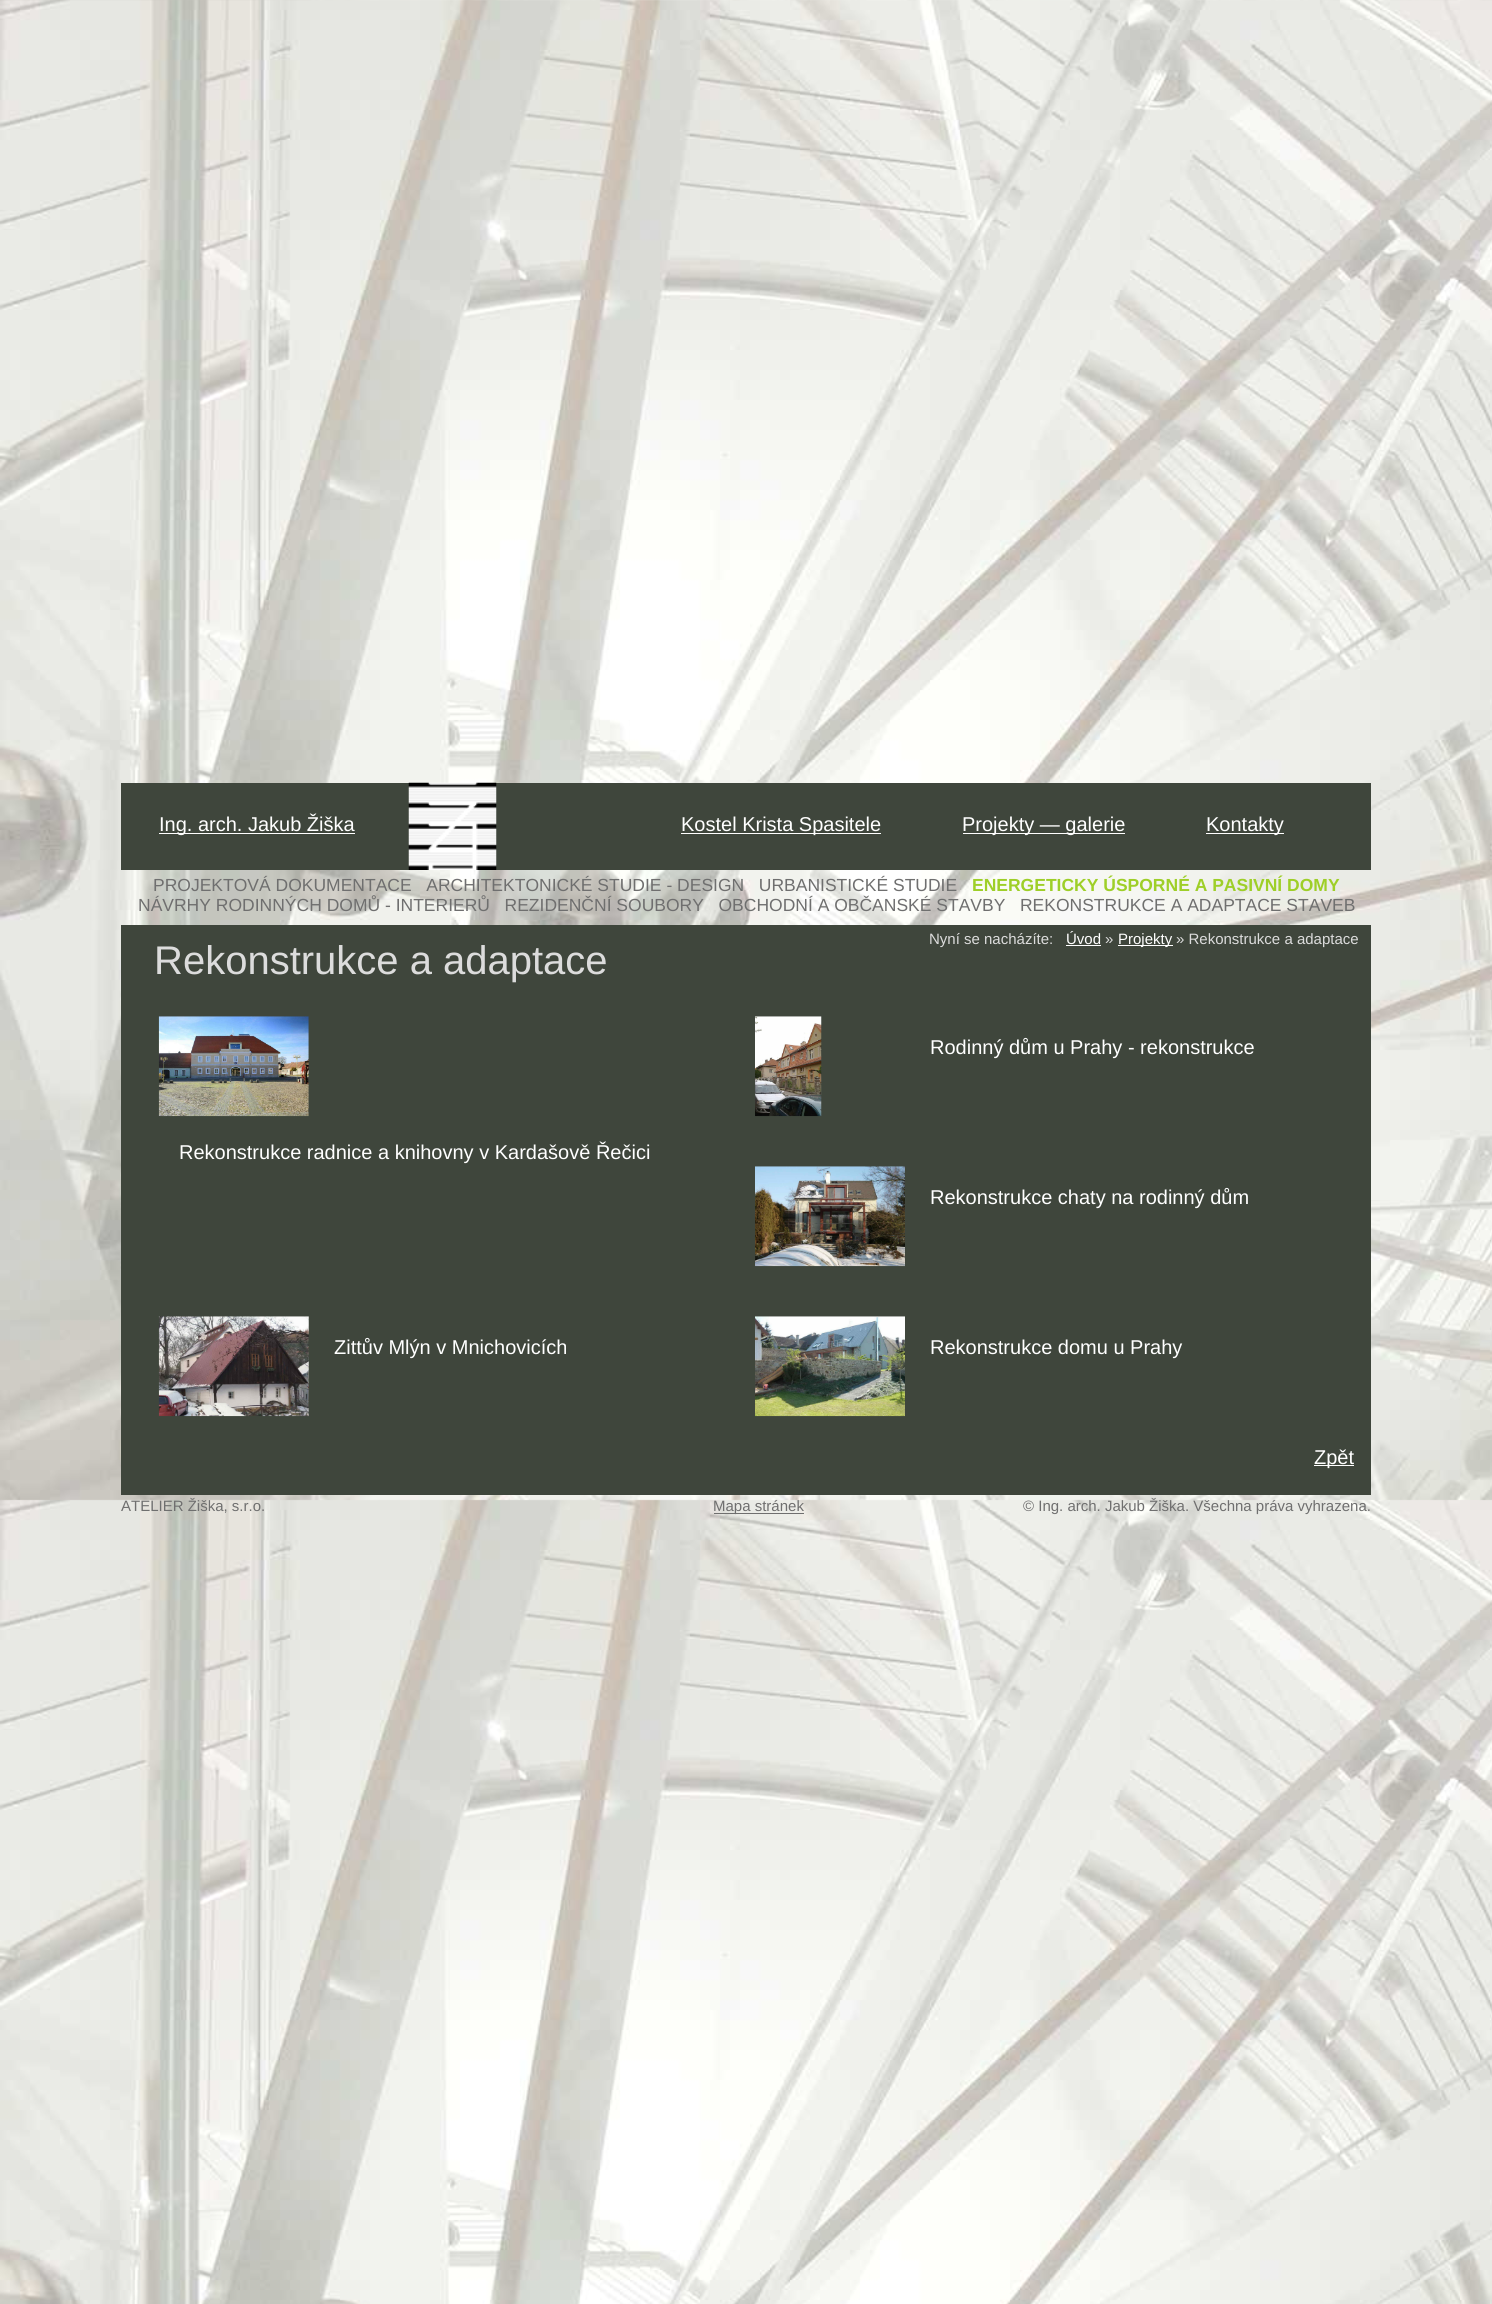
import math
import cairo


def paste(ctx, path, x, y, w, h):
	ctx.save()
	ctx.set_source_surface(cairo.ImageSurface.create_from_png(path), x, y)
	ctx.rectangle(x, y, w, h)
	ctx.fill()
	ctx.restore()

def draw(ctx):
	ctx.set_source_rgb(1, 1, 1)
	ctx.paint()
	paste(ctx, 'media/1.png', 0, 0, 1492, 2304)
	ctx.set_source_rgb(0.247, 0.275, 0.235)
	ctx.rectangle(121, 783, 1250, 87)
	ctx.fill()
	paste(ctx, 'media/2.png', 408, 782, 89, 88)
	ctx.set_source_rgb(1, 1, 1)
	ctx.rectangle(159, 833, 196, 1)
	ctx.fill()
	ctx.select_font_face('Liberation Sans')
	ctx.set_font_size(20)
	ctx.move_to(159, 831)
	ctx.show_text('Ing. arch. Jakub Žiška')
	ctx.rectangle(681, 833, 200, 1)
	ctx.fill()
	ctx.move_to(681, 831)
	ctx.show_text('Kostel Krista Spasitele')
	ctx.rectangle(963, 833, 162, 1)
	ctx.fill()
	ctx.move_to(962, 831)
	ctx.show_text('Projekty — galerie')
	ctx.rectangle(1206, 833, 78, 1)
	ctx.fill()
	ctx.move_to(1206, 831)
	ctx.show_text('Kontakty')
	ctx.set_font_size(17.5)
	ctx.set_source_rgb(0.435, 0.435, 0.435)
	ctx.move_to(153, 891)
	ctx.show_text('PROJEKTOVÁ DOKUMENTACE   ARCHITEKTONICKÉ STUDIE - DESIGN   URBANISTICKÉ STUDIE')
	ctx.select_font_face('Liberation Sans', cairo.FONT_SLANT_NORMAL, cairo.FONT_WEIGHT_BOLD)
	ctx.set_source_rgb(0.62, 0.812, 0.157)
	ctx.move_to(972, 891)
	ctx.show_text('ENERGETICKY ÚSPORNÉ A PASIVNÍ DOMY')
	ctx.select_font_face('Liberation Sans')
	ctx.set_source_rgb(0.435, 0.435, 0.435)
	ctx.move_to(138, 911)
	ctx.show_text('NÁVRHY RODINNÝCH DOMŮ - INTERIERŮ   REZIDENČNÍ SOUBORY   OBCHODNÍ A OBČANSKÉ STAVBY   REKONSTRUKCE A ADAPTACE STAVEB')
	ctx.set_source_rgb(0.247, 0.275, 0.235)
	ctx.rectangle(121, 925, 1250, 570)
	ctx.fill()
	ctx.set_font_size(15)
	ctx.set_source_rgb(0.863, 0.863, 0.863)
	ctx.move_to(929, 944)
	ctx.show_text('Nyní se nacházíte:')
	ctx.set_source_rgb(1, 1, 1)
	ctx.move_to(1066, 944)
	ctx.show_text('Úvod')
	ctx.rectangle(1066, 945, 35, 1)
	ctx.fill()
	ctx.set_source_rgb(0.863, 0.863, 0.863)
	ctx.move_to(1105, 944)
	ctx.show_text('»')
	ctx.set_source_rgb(1, 1, 1)
	ctx.rectangle(1118, 945, 55, 1)
	ctx.fill()
	ctx.move_to(1118, 944)
	ctx.show_text('Projekty')
	ctx.set_source_rgb(0.863, 0.863, 0.863)
	ctx.move_to(1176, 944)
	ctx.show_text('» Rekonstrukce a adaptace')
	ctx.set_font_size(40)
	ctx.move_to(154, 974)
	ctx.show_text('Rekonstrukce a adaptace')
	paste(ctx, 'media/3.png', 755, 1016, 67, 101)
	ctx.set_font_size(20)
	ctx.set_source_rgb(1, 1, 1)
	ctx.move_to(930, 1054)
	ctx.show_text('Rodinný dům u Prahy - rekonstrukce')
	paste(ctx, 'media/4.png', 158, 1016, 151, 101)
	ctx.move_to(179, 1159)
	ctx.show_text('Rekonstrukce radnice a knihovny v Kardašově Řečici')
	paste(ctx, 'media/5.png', 755, 1166, 150, 101)
	ctx.move_to(930, 1204)
	ctx.show_text('Rekonstrukce chaty na rodinný dům')
	paste(ctx, 'media/6.png', 158, 1316, 151, 101)
	ctx.move_to(334, 1354)
	ctx.show_text('Zittův Mlýn v Mnichovicích')
	paste(ctx, 'media/7.png', 755, 1316, 150, 101)
	ctx.move_to(930, 1354)
	ctx.show_text('Rekonstrukce domu u Prahy')
	ctx.rectangle(1314, 1465, 40, 1)
	ctx.fill()
	ctx.move_to(1314, 1464)
	ctx.show_text('Zpět')
	ctx.set_font_size(15)
	ctx.set_source_rgb(0.435, 0.435, 0.435)
	ctx.move_to(121, 1511)
	ctx.show_text('ATELIER Žiška, s.r.o.')
	ctx.rectangle(714, 1513, 90, 1)
	ctx.fill()
	ctx.move_to(713, 1511)
	ctx.show_text('Mapa stránek')
	ctx.move_to(1023, 1511)
	ctx.show_text('© Ing. arch. Jakub Žiška. Všechna práva vyhrazena.')


surface = cairo.ImageSurface(cairo.FORMAT_RGB24, 1492, 2304)
ctx = cairo.Context(surface)
options = cairo.FontOptions()
options.set_hint_metrics(cairo.HINT_METRICS_OFF)
options.set_hint_style(cairo.HINT_STYLE_NONE)
ctx.set_font_options(options)
ctx.set_miter_limit(4)
draw(ctx)
surface.write_to_png('image.png')
